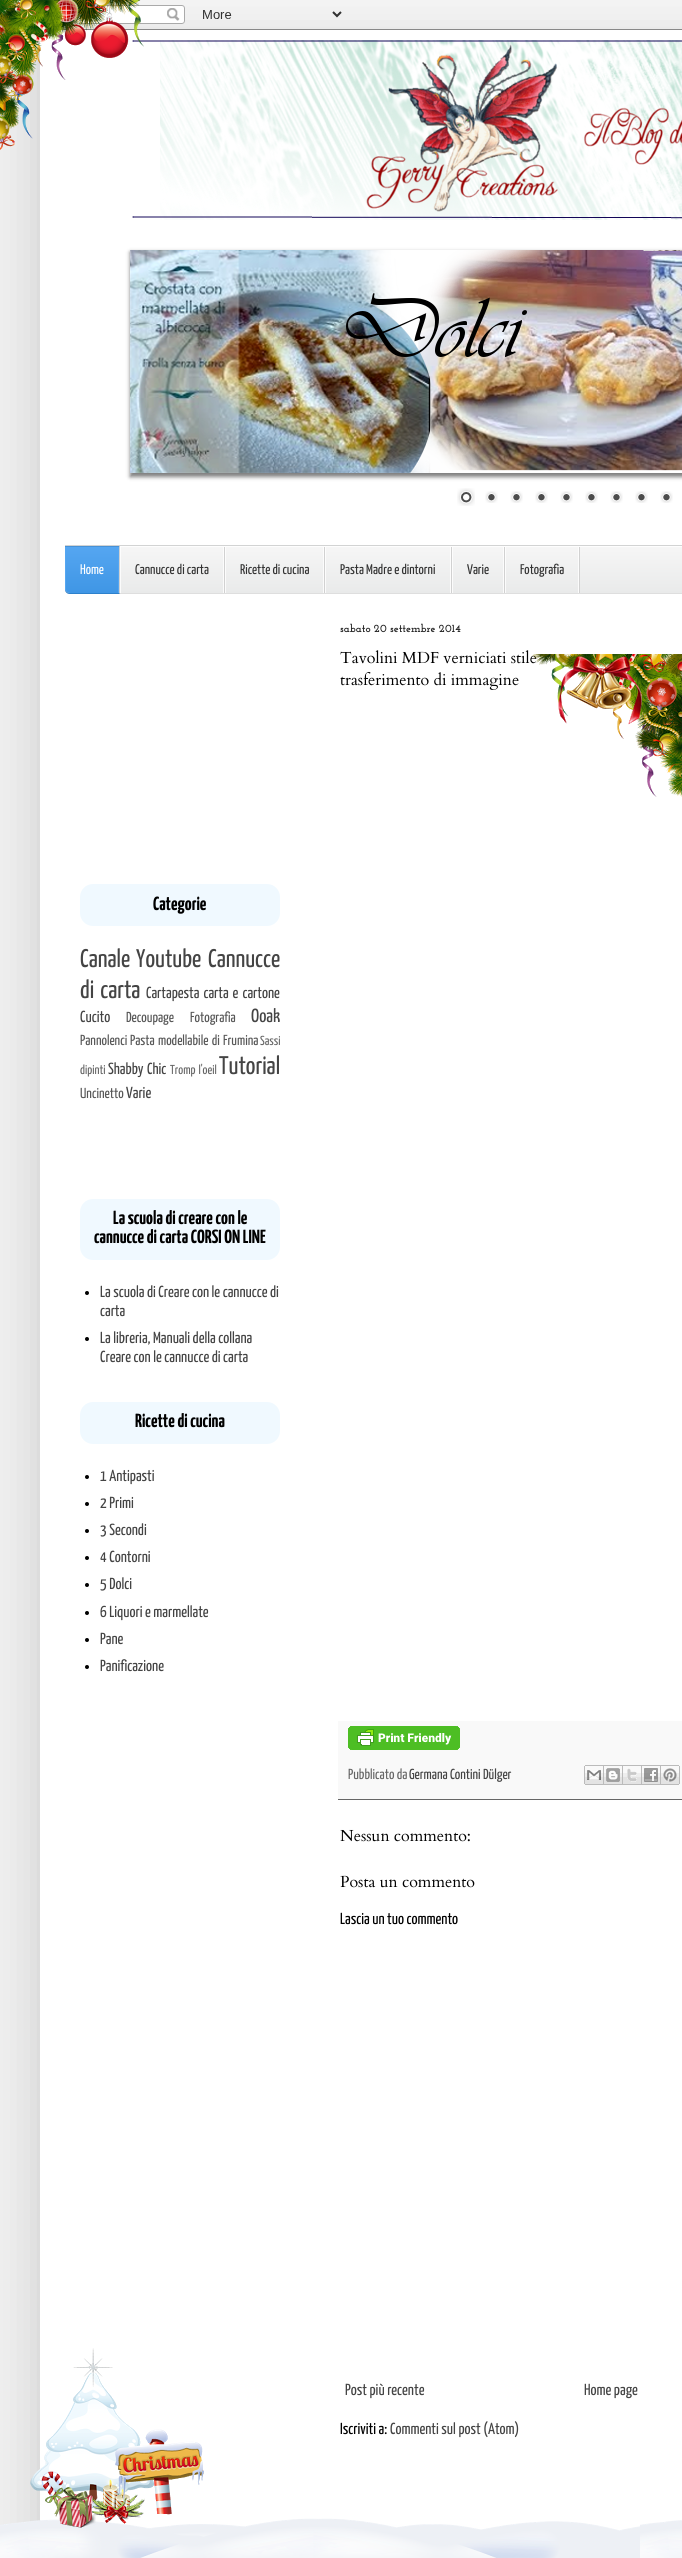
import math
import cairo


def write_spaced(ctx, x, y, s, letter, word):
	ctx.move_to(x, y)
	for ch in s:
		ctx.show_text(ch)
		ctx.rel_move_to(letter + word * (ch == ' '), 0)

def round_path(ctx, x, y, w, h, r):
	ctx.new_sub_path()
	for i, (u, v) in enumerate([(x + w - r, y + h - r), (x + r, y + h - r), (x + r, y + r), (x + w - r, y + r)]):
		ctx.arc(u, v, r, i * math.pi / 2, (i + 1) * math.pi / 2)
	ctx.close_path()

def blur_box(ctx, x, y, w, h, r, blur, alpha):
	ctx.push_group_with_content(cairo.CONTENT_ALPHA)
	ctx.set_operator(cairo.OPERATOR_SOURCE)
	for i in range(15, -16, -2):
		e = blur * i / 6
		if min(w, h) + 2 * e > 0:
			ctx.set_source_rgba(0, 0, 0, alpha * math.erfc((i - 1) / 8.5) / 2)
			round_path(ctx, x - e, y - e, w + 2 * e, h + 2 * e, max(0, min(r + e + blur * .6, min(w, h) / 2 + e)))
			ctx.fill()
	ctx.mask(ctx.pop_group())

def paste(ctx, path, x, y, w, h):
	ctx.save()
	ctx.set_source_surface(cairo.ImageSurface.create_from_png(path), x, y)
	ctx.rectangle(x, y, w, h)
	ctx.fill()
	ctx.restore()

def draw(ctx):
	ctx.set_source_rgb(0.933, 0.933, 0.933)
	ctx.paint()
	ctx.set_source_rgb(0, 0, 0)
	blur_box(ctx, 40, 30, 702, 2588, 0, 20, 0.15)
	paste(ctx, 'media/1.png', 0, 0, 682, 30)
	ctx.set_source_rgb(1, 1, 1)
	ctx.rectangle(40, 30, 642, 2501)
	ctx.fill()
	paste(ctx, 'media/2.png', 132, 40, 550, 180)
	ctx.set_source_rgb(0, 0, 0)
	blur_box(ctx, 130, 252, 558, 225, 0, 2, 0.5)
	paste(ctx, 'media/3.png', 130, 250, 552, 223)
	paste(ctx, 'media/4.png', 457, 488, 18, 18)
	paste(ctx, 'media/5.png', 485, 491, 13, 12)
	paste(ctx, 'media/5.png', 510, 491, 13, 12)
	paste(ctx, 'media/5.png', 535, 491, 13, 12)
	paste(ctx, 'media/5.png', 560, 491, 13, 12)
	paste(ctx, 'media/5.png', 585, 491, 13, 12)
	paste(ctx, 'media/5.png', 610, 491, 13, 12)
	paste(ctx, 'media/5.png', 635, 491, 13, 12)
	paste(ctx, 'media/5.png', 660, 491, 13, 12)
	gradient = cairo.LinearGradient(580, 499, 580, 546)
	gradient.add_color_stop_rgba(0, 0.965, 0.965, 0.965, 1)
	gradient.add_color_stop_rgba(1, 0.914, 0.918, 0.918, 1)
	ctx.set_source(gradient)
	ctx.rectangle(65, 545, 617, 1)
	ctx.fill()
	ctx.save()
	ctx.new_path()
	ctx.move_to(65, 545)
	ctx.line_to(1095, 545)
	ctx.line_to(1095, 590)
	ctx.curve_to(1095, 592, 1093, 594, 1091, 594)
	ctx.line_to(69, 594)
	ctx.curve_to(67, 594, 65, 592, 65, 590)
	ctx.close_path()
	ctx.clip()
	gradient = cairo.LinearGradient(580, 546, 580, 593)
	gradient.add_color_stop_rgba(0, 0.965, 0.965, 0.965, 1)
	gradient.add_color_stop_rgba(1, 0.914, 0.918, 0.918, 1)
	ctx.set_source(gradient)
	ctx.rectangle(65, 547, 617, 46)
	ctx.fill()
	ctx.restore()
	gradient = cairo.LinearGradient(580, 546, 580, 593)
	gradient.add_color_stop_rgba(0, 0.992, 0.992, 0.992, 1)
	gradient.add_color_stop_rgba(1, 0.984, 0.984, 0.984, 1)
	ctx.set_source(gradient)
	ctx.rectangle(578, 547, 1, 46)
	ctx.fill()
	ctx.rectangle(505, 547, 1, 46)
	ctx.fill()
	ctx.rectangle(503, 547, 1, 46)
	ctx.fill()
	ctx.rectangle(452, 547, 1, 46)
	ctx.fill()
	ctx.rectangle(450, 547, 1, 46)
	ctx.fill()
	ctx.rectangle(325, 547, 1, 46)
	ctx.fill()
	ctx.rectangle(323, 547, 1, 46)
	ctx.fill()
	ctx.rectangle(225, 547, 1, 46)
	ctx.fill()
	ctx.rectangle(223, 547, 1, 46)
	ctx.fill()
	ctx.rectangle(120, 547, 1, 46)
	ctx.fill()
	ctx.save()
	ctx.new_path()
	ctx.move_to(65, 545)
	ctx.line_to(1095, 545)
	ctx.line_to(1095, 590)
	ctx.curve_to(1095, 592, 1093, 594, 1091, 594)
	ctx.line_to(69, 594)
	ctx.curve_to(67, 594, 65, 592, 65, 590)
	ctx.close_path()
	ctx.clip()
	gradient = cairo.LinearGradient(580, 593, 580, 640)
	gradient.add_color_stop_rgba(0, 0.965, 0.965, 0.965, 1)
	gradient.add_color_stop_rgba(1, 0.914, 0.918, 0.918, 1)
	ctx.set_source(gradient)
	ctx.rectangle(65, 593, 617, 1)
	ctx.fill()
	ctx.restore()
	ctx.set_source_rgb(0.992, 0.992, 0.992)
	ctx.new_path()
	ctx.move_to(66, 546)
	ctx.line_to(66, 547)
	ctx.line_to(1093, 547)
	ctx.line_to(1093, 592)
	ctx.line_to(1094, 591)
	ctx.line_to(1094, 546)
	ctx.close_path()
	ctx.fill()
	ctx.new_path()
	ctx.move_to(65.5, 545.5)
	ctx.line_to(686.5, 545.5)
	ctx.line_to(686.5, 590)
	ctx.curve_to(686.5, 592, 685, 593.5, 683, 593.5)
	ctx.line_to(69, 593.5)
	ctx.curve_to(67, 593.5, 65.5, 592, 65.5, 590)
	ctx.close_path()
	ctx.set_source_rgba(0, 0, 0, 0.1)
	ctx.set_line_width(1)
	ctx.stroke()
	gradient = cairo.LinearGradient(92, 547, 92, 593)
	gradient.add_color_stop_rgba(0, 0.333, 0.651, 0.945, 1)
	gradient.add_color_stop_rgba(1, 0.247, 0.588, 0.898, 1)
	ctx.set_source(gradient)
	ctx.new_path()
	ctx.move_to(65, 547)
	ctx.line_to(119, 547)
	ctx.line_to(119, 593)
	ctx.line_to(70, 593)
	ctx.curve_to(67, 593, 65, 591, 65, 589)
	ctx.close_path()
	ctx.fill()
	ctx.set_source_rgb(0.333, 0.651, 0.945)
	ctx.new_path()
	ctx.move_to(65, 547)
	ctx.line_to(65, 589)
	ctx.curve_to(65, 591, 67, 593, 70, 593)
	ctx.line_to(71, 593)
	ctx.curve_to(68, 593, 66, 591, 66, 589)
	ctx.line_to(66, 547)
	ctx.close_path()
	ctx.fill()
	ctx.rectangle(118, 547, 1, 46)
	ctx.fill()
	ctx.set_source_rgb(0.278, 0.569, 0.839)
	ctx.new_path()
	ctx.move_to(65, 546)
	ctx.line_to(65, 547)
	ctx.line_to(119, 547)
	ctx.line_to(120, 546)
	ctx.close_path()
	ctx.fill()
	ctx.set_source_rgb(0.82, 0.82, 0.82)
	ctx.new_path()
	ctx.move_to(120, 546)
	ctx.line_to(120, 594)
	ctx.line_to(119, 593)
	ctx.line_to(119, 547)
	ctx.close_path()
	ctx.fill()
	ctx.set_source_rgb(0.176, 0.506, 0.8)
	ctx.new_path()
	ctx.move_to(120, 594)
	ctx.line_to(70, 594)
	ctx.curve_to(67, 594, 65, 592, 65, 589)
	ctx.curve_to(65, 591, 67, 593, 70, 593)
	ctx.line_to(119, 593)
	ctx.close_path()
	ctx.fill()
	ctx.select_font_face('Yanone Kaffeesatz')
	ctx.set_font_size(14)
	ctx.set_source_rgb(1, 1, 1)
	ctx.move_to(80, 574)
	ctx.show_text('Home')
	ctx.set_source_rgb(0.82, 0.82, 0.82)
	ctx.rectangle(224, 547, 1, 46)
	ctx.fill()
	ctx.set_source_rgb(0.2, 0.2, 0.2)
	ctx.move_to(135, 574)
	ctx.show_text('Cannucce di carta')
	ctx.set_source_rgb(0.82, 0.82, 0.82)
	ctx.rectangle(324, 547, 1, 46)
	ctx.fill()
	ctx.set_source_rgb(0.2, 0.2, 0.2)
	ctx.move_to(240, 574)
	ctx.show_text('Ricette di cucina')
	ctx.set_source_rgb(0.82, 0.82, 0.82)
	ctx.rectangle(451, 547, 1, 46)
	ctx.fill()
	ctx.set_source_rgb(0.2, 0.2, 0.2)
	ctx.move_to(340, 574)
	ctx.show_text('Pasta Madre e dintorni')
	ctx.set_source_rgb(0.82, 0.82, 0.82)
	ctx.rectangle(504, 547, 1, 46)
	ctx.fill()
	ctx.set_source_rgb(0.2, 0.2, 0.2)
	ctx.move_to(467, 574)
	ctx.show_text('Varie')
	ctx.set_source_rgb(0.82, 0.82, 0.82)
	ctx.rectangle(579, 547, 1, 46)
	ctx.fill()
	ctx.set_source_rgb(0.2, 0.2, 0.2)
	ctx.move_to(520, 574)
	ctx.show_text('Fotografia')
	paste(ctx, 'media/6.png', 0, 0, 144, 150)
	ctx.select_font_face('Cardo')
	ctx.set_font_size(16)
	ctx.set_source_rgb(0, 0, 0)
	ctx.move_to(340, 663)
	ctx.show_text('Tavolini MDF verniciati stile')
	paste(ctx, 'media/7.png', 532, 654, 150, 143)
	paste(ctx, 'media/9.png', 0, 2518, 682, 40)
	paste(ctx, 'media/8.png', 30, 2348, 174, 180)
	ctx.set_source_rgb(0.941, 0.973, 1)
	round_path(ctx, 81, 885, 198, 40, 12)
	ctx.fill_preserve()
	ctx.set_line_width(2)
	ctx.stroke()
	ctx.select_font_face('Yanone Kaffeesatz', cairo.FONT_SLANT_NORMAL, cairo.FONT_WEIGHT_BOLD)
	ctx.set_font_size(19)
	ctx.set_source_rgb(0, 0, 0)
	ctx.move_to(153, 910)
	ctx.show_text('Categorie')
	ctx.select_font_face('Yanone Kaffeesatz')
	ctx.set_font_size(25.5)
	ctx.set_source_rgb(0.267, 0.267, 0.267)
	write_spaced(ctx, 80, 967, 'Canale Youtube', 0, 2)
	ctx.move_to(208, 967)
	ctx.show_text('Cannucce')
	write_spaced(ctx, 80, 998, 'di carta', 0, 2)
	ctx.set_font_size(16)
	write_spaced(ctx, 146, 998, 'Cartapesta carta e cartone', 0, 1.5)
	ctx.move_to(80, 1022)
	ctx.show_text('Cucito')
	ctx.set_font_size(14.5)
	ctx.set_source_rgb(0.341, 0.341, 0.341)
	ctx.move_to(126, 1022)
	ctx.show_text('Decoupage')
	ctx.move_to(190, 1022)
	ctx.show_text('Fotografia')
	ctx.set_font_size(19)
	ctx.set_source_rgb(0.267, 0.267, 0.267)
	ctx.move_to(251, 1022)
	ctx.show_text('Ooak')
	ctx.set_font_size(14.5)
	ctx.set_source_rgb(0.341, 0.341, 0.341)
	ctx.move_to(80, 1045)
	ctx.show_text('Pannolenci')
	write_spaced(ctx, 130, 1045, 'Pasta modellabile di Frumina', 0, 1)
	ctx.set_font_size(13)
	ctx.set_source_rgb(0.4, 0.4, 0.4)
	ctx.move_to(260, 1045)
	ctx.show_text('Sassi')
	ctx.move_to(80, 1074)
	ctx.show_text('dipinti')
	ctx.set_font_size(16)
	ctx.set_source_rgb(0.267, 0.267, 0.267)
	write_spaced(ctx, 108, 1074, 'Shabby Chic', 0, 1)
	ctx.set_font_size(13)
	ctx.set_source_rgb(0.4, 0.4, 0.4)
	write_spaced(ctx, 170, 1074, 'Tromp l\'oeil', 0, 1)
	ctx.set_font_size(25.5)
	ctx.set_source_rgb(0.267, 0.267, 0.267)
	ctx.move_to(219, 1074)
	ctx.show_text('Tutorial')
	ctx.set_font_size(14.5)
	ctx.set_source_rgb(0.341, 0.341, 0.341)
	ctx.move_to(80, 1098)
	ctx.show_text('Uncinetto')
	ctx.set_font_size(16)
	ctx.set_source_rgb(0.267, 0.267, 0.267)
	ctx.move_to(126, 1098)
	ctx.show_text('Varie')
	ctx.set_source_rgb(0.941, 0.973, 1)
	round_path(ctx, 81, 1200, 198, 59, 12)
	ctx.fill_preserve()
	ctx.stroke()
	ctx.select_font_face('Yanone Kaffeesatz', cairo.FONT_SLANT_NORMAL, cairo.FONT_WEIGHT_BOLD)
	ctx.set_font_size(19)
	ctx.set_source_rgb(0, 0, 0)
	ctx.move_to(113, 1224)
	ctx.show_text('La scuola di creare con le')
	ctx.move_to(94, 1243)
	ctx.show_text('cannucce di carta CORSI ON LINE')
	ctx.new_path()
	ctx.arc(87, 1293, 2, 0, 2 * math.pi)
	ctx.fill()
	ctx.select_font_face('Yanone Kaffeesatz')
	ctx.set_font_size(16)
	ctx.set_source_rgb(0.267, 0.267, 0.267)
	ctx.move_to(100, 1297)
	ctx.show_text('La scuola di Creare con le cannucce di')
	ctx.move_to(100, 1316)
	ctx.show_text('carta')
	ctx.set_source_rgb(0, 0, 0)
	ctx.new_path()
	ctx.arc(87, 1339, 2, 0, 2 * math.pi)
	ctx.fill()
	ctx.set_source_rgb(0.267, 0.267, 0.267)
	ctx.move_to(100, 1343)
	ctx.show_text('La libreria, Manuali della collana')
	ctx.move_to(100, 1362)
	ctx.show_text('Creare con le cannucce di carta')
	ctx.set_source_rgb(0.941, 0.973, 1)
	round_path(ctx, 81, 1403, 198, 40, 12)
	ctx.fill_preserve()
	ctx.stroke()
	ctx.select_font_face('Yanone Kaffeesatz', cairo.FONT_SLANT_NORMAL, cairo.FONT_WEIGHT_BOLD)
	ctx.set_font_size(19)
	ctx.set_source_rgb(0, 0, 0)
	ctx.move_to(135, 1427)
	ctx.show_text('Ricette di cucina')
	ctx.new_path()
	ctx.arc(87, 1477, 2, 0, 2 * math.pi)
	ctx.fill()
	ctx.select_font_face('Yanone Kaffeesatz')
	ctx.set_font_size(16)
	ctx.set_source_rgb(0.267, 0.267, 0.267)
	ctx.move_to(100, 1481)
	ctx.show_text('1 Antipasti')
	ctx.set_source_rgb(0, 0, 0)
	ctx.new_path()
	ctx.arc(87, 1504, 2, 0, 2 * math.pi)
	ctx.fill()
	ctx.set_source_rgb(0.267, 0.267, 0.267)
	ctx.move_to(100, 1508)
	ctx.show_text('2 Primi')
	ctx.set_source_rgb(0, 0, 0)
	ctx.new_path()
	ctx.arc(87, 1531, 2, 0, 2 * math.pi)
	ctx.fill()
	ctx.set_source_rgb(0.267, 0.267, 0.267)
	ctx.move_to(100, 1535)
	ctx.show_text('3 Secondi')
	ctx.set_source_rgb(0, 0, 0)
	ctx.new_path()
	ctx.arc(87, 1558, 2, 0, 2 * math.pi)
	ctx.fill()
	ctx.set_source_rgb(0.267, 0.267, 0.267)
	ctx.move_to(100, 1562)
	ctx.show_text('4 Contorni')
	ctx.set_source_rgb(0, 0, 0)
	ctx.new_path()
	ctx.arc(87, 1585, 2, 0, 2 * math.pi)
	ctx.fill()
	ctx.set_source_rgb(0.267, 0.267, 0.267)
	ctx.move_to(100, 1589)
	ctx.show_text('5 Dolci')
	ctx.set_source_rgb(0, 0, 0)
	ctx.new_path()
	ctx.arc(87, 1613, 2, 0, 2 * math.pi)
	ctx.fill()
	ctx.set_source_rgb(0.267, 0.267, 0.267)
	ctx.move_to(100, 1617)
	ctx.show_text('6 Liquori e marmellate')
	ctx.set_source_rgb(0, 0, 0)
	ctx.new_path()
	ctx.arc(87, 1640, 2, 0, 2 * math.pi)
	ctx.fill()
	ctx.set_source_rgb(0.267, 0.267, 0.267)
	ctx.move_to(100, 1644)
	ctx.show_text('Pane')
	ctx.set_source_rgb(0, 0, 0)
	ctx.new_path()
	ctx.arc(87, 1667, 2, 0, 2 * math.pi)
	ctx.fill()
	ctx.set_source_rgb(0.267, 0.267, 0.267)
	ctx.move_to(100, 1671)
	ctx.show_text('Panificazione')
	ctx.select_font_face('Josefin Slab Thin')
	ctx.set_font_size(11)
	ctx.set_source_rgb(0.133, 0.133, 0.133)
	ctx.move_to(340, 632)
	ctx.show_text('sabato 20 settembre 2014')
	ctx.select_font_face('Cardo')
	ctx.set_font_size(16)
	ctx.set_source_rgb(0, 0, 0)
	ctx.move_to(340, 685)
	ctx.show_text('trasferimento di immagine')
	ctx.set_source_rgb(0.976, 0.976, 0.976)
	ctx.rectangle(338, 1721, 344, 78)
	ctx.fill()
	ctx.set_source_rgb(0.4, 0.4, 0.4)
	ctx.rectangle(338, 1799, 344, 1)
	ctx.fill()
	paste(ctx, 'media/10.png', 348, 1726, 112, 24)
	ctx.select_font_face('Yanone Kaffeesatz')
	ctx.set_font_size(14.5)
	ctx.move_to(348, 1779)
	ctx.show_text('Pubblicato da')
	ctx.set_source_rgb(0.267, 0.267, 0.267)
	ctx.move_to(409, 1779)
	ctx.show_text('Germana Contini Dülger')
	paste(ctx, 'media/11.png', 584, 1765, 20, 20)
	paste(ctx, 'media/12.png', 604, 1765, 19, 20)
	paste(ctx, 'media/13.png', 623, 1765, 19, 20)
	paste(ctx, 'media/14.png', 642, 1765, 19, 20)
	paste(ctx, 'media/15.png', 661, 1765, 19, 20)
	ctx.select_font_face('Cardo')
	ctx.set_font_size(16)
	ctx.set_source_rgb(0, 0, 0)
	ctx.move_to(340, 1841)
	ctx.show_text('Nessun commento:')
	ctx.move_to(340, 1887)
	ctx.show_text('Posta un commento')
	ctx.select_font_face('Yanone Kaffeesatz')
	ctx.move_to(340, 1924)
	ctx.show_text('Lascia un tuo commento')
	ctx.set_source_rgb(0.267, 0.267, 0.267)
	ctx.move_to(345, 2395)
	ctx.show_text('Post più recente')
	ctx.move_to(584, 2395)
	ctx.show_text('Home page')
	ctx.set_source_rgb(0, 0, 0)
	ctx.move_to(340, 2434)
	ctx.show_text('Iscriviti a:')
	ctx.set_source_rgb(0.267, 0.267, 0.267)
	ctx.move_to(390, 2434)
	ctx.show_text('Commenti sul post (Atom)')


surface = cairo.ImageSurface(cairo.FORMAT_RGB24, 682, 2558)
ctx = cairo.Context(surface)
options = cairo.FontOptions()
options.set_hint_metrics(cairo.HINT_METRICS_OFF)
options.set_hint_style(cairo.HINT_STYLE_NONE)
ctx.set_font_options(options)
ctx.set_miter_limit(4)
draw(ctx)
surface.write_to_png('image.png')
